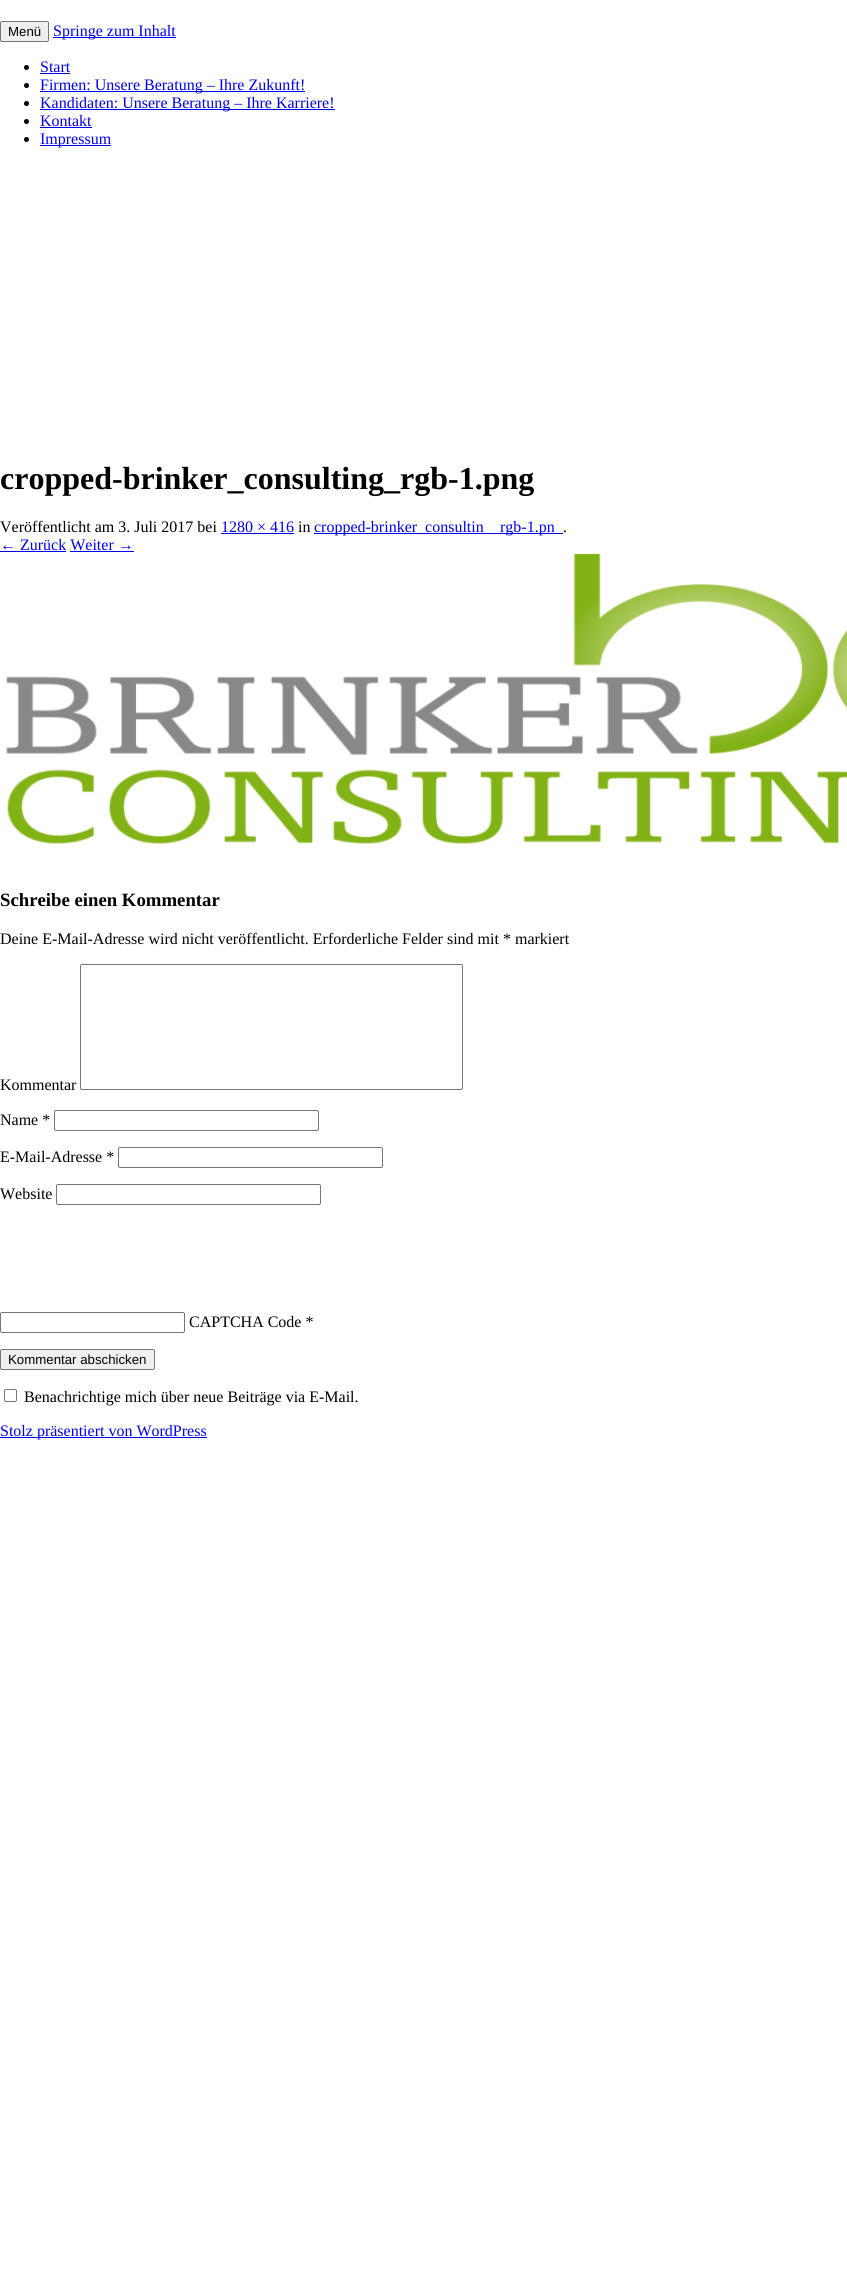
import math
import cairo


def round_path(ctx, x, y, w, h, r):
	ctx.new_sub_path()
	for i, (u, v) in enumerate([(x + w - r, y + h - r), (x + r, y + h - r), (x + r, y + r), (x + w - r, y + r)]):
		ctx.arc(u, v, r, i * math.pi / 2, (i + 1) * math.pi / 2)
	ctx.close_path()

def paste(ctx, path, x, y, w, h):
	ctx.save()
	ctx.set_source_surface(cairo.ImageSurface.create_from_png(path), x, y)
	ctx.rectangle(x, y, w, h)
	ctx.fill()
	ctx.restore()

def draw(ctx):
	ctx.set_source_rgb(1, 1, 1)
	ctx.paint()
	ctx.set_source_rgb(0.937, 0.937, 0.937)
	round_path(ctx, 0.5, 21.5, 48, 20, 1.5)
	ctx.fill_preserve()
	ctx.set_source_rgb(0.463, 0.463, 0.463)
	ctx.set_line_width(1)
	ctx.stroke()
	ctx.select_font_face('Liberation Sans')
	ctx.set_font_size(13.25)
	ctx.set_source_rgb(0, 0, 0)
	ctx.move_to(8, 36)
	ctx.show_text('Menü')
	ctx.set_source_rgb(0, 0, 0.933)
	ctx.rectangle(53, 37, 123, 1)
	ctx.fill()
	ctx.select_font_face('Liberation Serif')
	ctx.set_font_size(16)
	ctx.move_to(53, 36)
	ctx.show_text('Springe zum Inhalt')
	ctx.set_source_rgb(0, 0, 0)
	ctx.new_path()
	ctx.arc(26.5, 67.5, 2.5, 0, 2 * math.pi)
	ctx.fill()
	ctx.set_source_rgb(0, 0, 0.933)
	ctx.move_to(40, 72)
	ctx.show_text('Start')
	ctx.rectangle(40, 73, 30, 1)
	ctx.fill()
	ctx.set_source_rgb(0, 0, 0)
	ctx.arc(26.5, 85.5, 2.5, 0, 2 * math.pi)
	ctx.fill()
	ctx.set_source_rgb(0, 0, 0.933)
	ctx.rectangle(40, 91, 265, 1)
	ctx.fill()
	ctx.move_to(40, 90)
	ctx.show_text('Firmen: Unsere Beratung – Ihre Zukunft!')
	ctx.set_source_rgb(0, 0, 0)
	ctx.new_path()
	ctx.arc(26.5, 103.5, 2.5, 0, 2 * math.pi)
	ctx.fill()
	ctx.set_source_rgb(0, 0, 0.933)
	ctx.rectangle(40, 109, 295, 1)
	ctx.fill()
	ctx.move_to(40, 108)
	ctx.show_text('Kandidaten: Unsere Beratung – Ihre Karriere!')
	ctx.set_source_rgb(0, 0, 0)
	ctx.new_path()
	ctx.arc(26.5, 121.5, 2.5, 0, 2 * math.pi)
	ctx.fill()
	ctx.set_source_rgb(0, 0, 0.933)
	ctx.move_to(40, 126)
	ctx.show_text('Kontakt')
	ctx.rectangle(40, 127, 52, 1)
	ctx.fill()
	ctx.set_source_rgb(0, 0, 0)
	ctx.arc(26.5, 139.5, 2.5, 0, 2 * math.pi)
	ctx.fill()
	ctx.set_source_rgb(0, 0, 0.933)
	ctx.rectangle(40, 145, 71, 1)
	ctx.fill()
	ctx.move_to(40, 144)
	ctx.show_text('Impressum')
	ctx.select_font_face('Liberation Serif', cairo.FONT_SLANT_NORMAL, cairo.FONT_WEIGHT_BOLD)
	ctx.set_font_size(32)
	ctx.set_source_rgb(0, 0, 0)
	ctx.move_to(0, 489)
	ctx.show_text('cropped-brinker_consulting_rgb-1.png')
	ctx.select_font_face('Liberation Serif')
	ctx.set_font_size(16)
	ctx.move_to(0, 532)
	ctx.show_text('Veröffentlicht am 3. Juli 2017 bei')
	ctx.set_source_rgb(0, 0, 0.933)
	ctx.move_to(221, 532)
	ctx.show_text('1280 × 416')
	ctx.rectangle(221, 533, 73, 1)
	ctx.fill()
	ctx.set_source_rgb(0, 0, 0)
	ctx.move_to(298, 532)
	ctx.show_text('in')
	ctx.set_source_rgb(0, 0, 0.933)
	ctx.rectangle(314, 533, 249, 1)
	ctx.fill()
	ctx.move_to(314, 532)
	ctx.show_text('cropped-brinker_consultin')
	ctx.move_to(500, 532)
	ctx.show_text('rgb-1.pn')
	ctx.set_source_rgb(0, 0, 0)
	ctx.move_to(563, 532)
	ctx.show_text('.')
	ctx.set_source_rgb(0, 0, 0.933)
	ctx.move_to(0, 550)
	ctx.show_text('← Zurück Weiter →')
	ctx.rectangle(0, 551, 66, 1)
	ctx.fill()
	ctx.rectangle(70, 551, 64, 1)
	ctx.fill()
	paste(ctx, 'media/1.png', 5, 554, 842, 290)
	ctx.select_font_face('Liberation Serif', cairo.FONT_SLANT_NORMAL, cairo.FONT_WEIGHT_BOLD)
	ctx.set_font_size(18.75)
	ctx.set_source_rgb(0, 0, 0)
	ctx.move_to(0, 906)
	ctx.show_text('Schreibe einen Kommentar')
	ctx.select_font_face('Liberation Serif')
	ctx.set_font_size(16)
	ctx.move_to(0, 944)
	ctx.show_text('Deine E-Mail-Adresse wird nicht veröffentlicht. Erforderliche Felder sind mit * markiert')
	ctx.move_to(0, 1090)
	ctx.show_text('Kommentar')
	round_path(ctx, 80.5, 964.5, 382, 125, 1.5)
	ctx.set_source_rgb(0.463, 0.463, 0.463)
	ctx.stroke()
	ctx.set_source_rgb(0, 0, 0)
	ctx.move_to(0, 1125)
	ctx.show_text('Name *')
	round_path(ctx, 54.5, 1110.5, 264, 20, 1.5)
	ctx.set_source_rgb(0.463, 0.463, 0.463)
	ctx.stroke()
	ctx.set_source_rgb(0, 0, 0)
	ctx.move_to(0, 1162)
	ctx.show_text('E-Mail-Adresse *')
	round_path(ctx, 118.5, 1147.5, 264, 20, 1.5)
	ctx.set_source_rgb(0.463, 0.463, 0.463)
	ctx.stroke()
	ctx.set_source_rgb(0, 0, 0)
	ctx.move_to(0, 1199)
	ctx.show_text('Website')
	round_path(ctx, 56.5, 1184.5, 264, 20, 1.5)
	ctx.set_source_rgb(0.463, 0.463, 0.463)
	ctx.stroke()
	round_path(ctx, 0.5, 1312.5, 184, 20, 1.5)
	ctx.stroke()
	ctx.set_source_rgb(0, 0, 0)
	ctx.move_to(189, 1327)
	ctx.show_text('CAPTCHA Code *')
	ctx.set_source_rgb(0.937, 0.937, 0.937)
	round_path(ctx, 0.5, 1349.5, 154, 20, 1.5)
	ctx.fill_preserve()
	ctx.set_source_rgb(0.463, 0.463, 0.463)
	ctx.stroke()
	ctx.select_font_face('Liberation Sans')
	ctx.set_font_size(13.25)
	ctx.set_source_rgb(0, 0, 0)
	ctx.move_to(8, 1364)
	ctx.show_text('Kommentar abschicken')
	round_path(ctx, 4.5, 1389.5, 12, 12, 1.5)
	ctx.set_source_rgb(0.463, 0.463, 0.463)
	ctx.stroke()
	ctx.select_font_face('Liberation Serif')
	ctx.set_font_size(16)
	ctx.set_source_rgb(0, 0, 0)
	ctx.move_to(24, 1402)
	ctx.show_text('Benachrichtige mich über neue Beiträge via E-Mail.')
	ctx.set_source_rgb(0, 0, 0.933)
	ctx.rectangle(0, 1437, 207, 1)
	ctx.fill()
	ctx.move_to(0, 1436)
	ctx.show_text('Stolz präsentiert von WordPress')


surface = cairo.ImageSurface(cairo.FORMAT_RGB24, 847, 2271)
ctx = cairo.Context(surface)
options = cairo.FontOptions()
options.set_hint_metrics(cairo.HINT_METRICS_OFF)
options.set_hint_style(cairo.HINT_STYLE_NONE)
ctx.set_font_options(options)
ctx.set_miter_limit(4)
draw(ctx)
surface.write_to_png('image.png')
